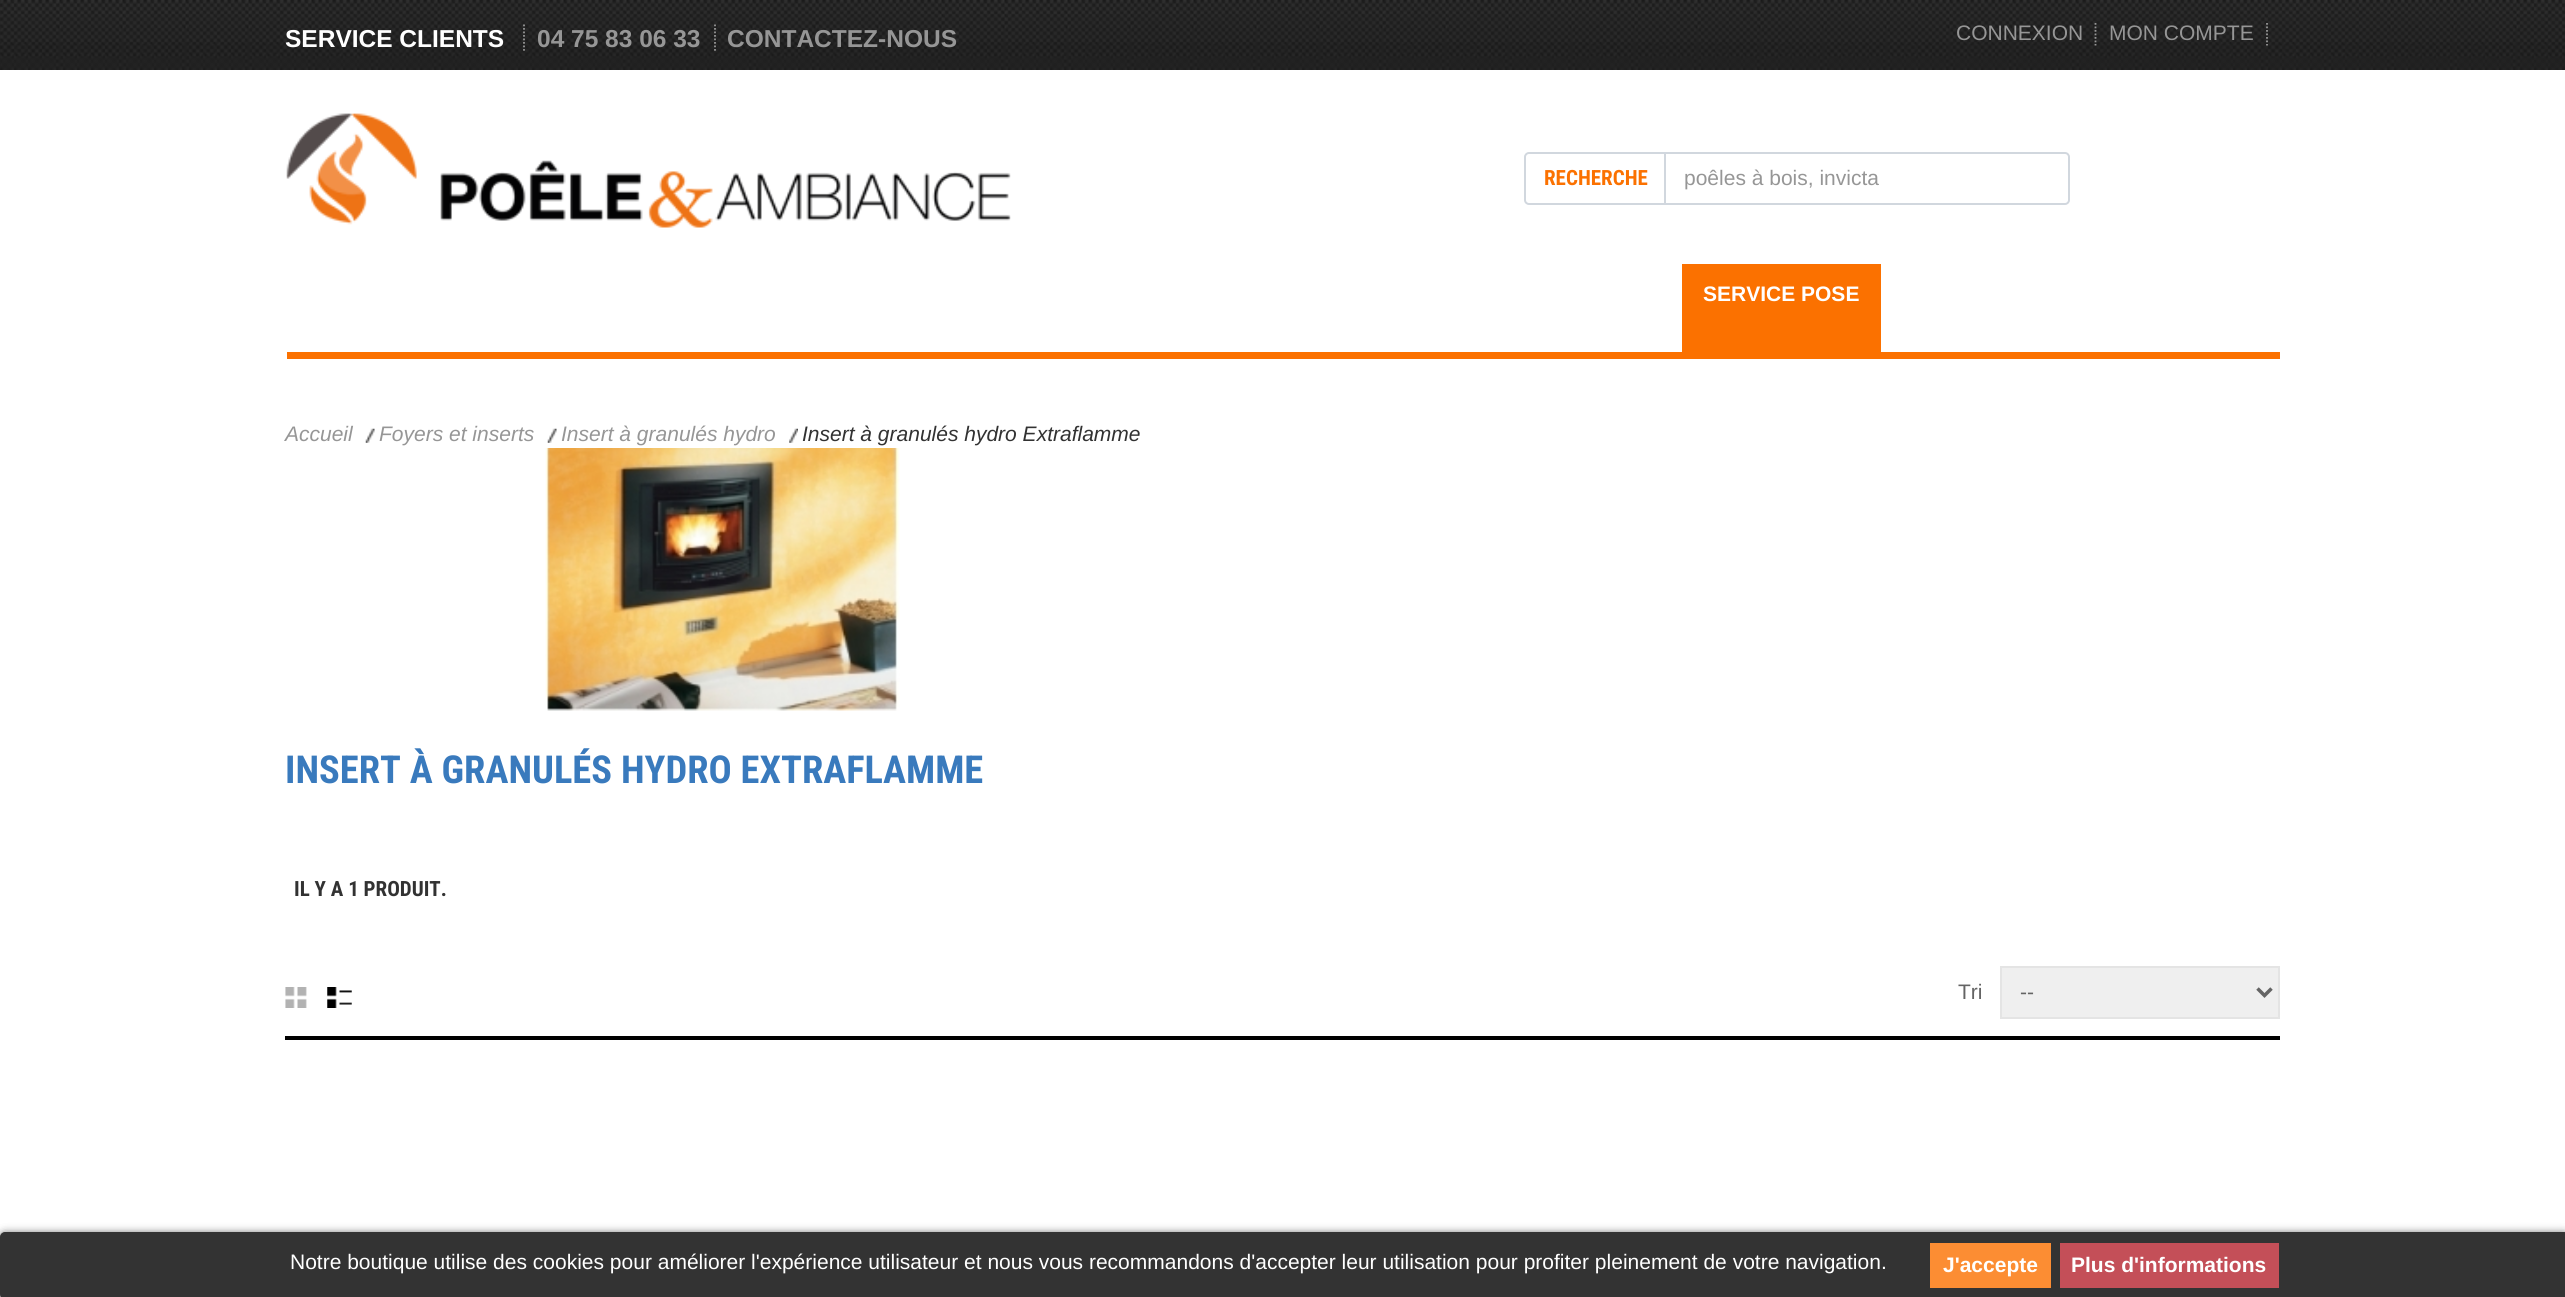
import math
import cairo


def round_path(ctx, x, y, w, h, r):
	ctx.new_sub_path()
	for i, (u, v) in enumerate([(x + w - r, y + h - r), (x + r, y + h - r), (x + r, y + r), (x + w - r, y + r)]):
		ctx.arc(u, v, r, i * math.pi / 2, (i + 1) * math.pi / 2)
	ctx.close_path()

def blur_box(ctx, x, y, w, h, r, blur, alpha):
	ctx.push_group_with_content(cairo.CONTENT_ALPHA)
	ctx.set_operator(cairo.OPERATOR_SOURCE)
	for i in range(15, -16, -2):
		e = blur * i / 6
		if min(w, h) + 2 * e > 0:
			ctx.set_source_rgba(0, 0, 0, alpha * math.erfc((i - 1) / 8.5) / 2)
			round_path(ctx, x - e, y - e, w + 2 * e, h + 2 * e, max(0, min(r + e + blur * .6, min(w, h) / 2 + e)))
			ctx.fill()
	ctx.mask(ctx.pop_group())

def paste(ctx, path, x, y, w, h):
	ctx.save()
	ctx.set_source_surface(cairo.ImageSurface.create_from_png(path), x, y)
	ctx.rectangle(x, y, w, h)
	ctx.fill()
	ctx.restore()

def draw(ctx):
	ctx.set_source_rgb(1, 1, 1)
	ctx.paint()
	paste(ctx, 'media/1.png', 0, 0, 2565, 70)
	ctx.select_font_face('Liberation Sans', cairo.FONT_SLANT_NORMAL, cairo.FONT_WEIGHT_BOLD)
	ctx.set_font_size(24.5)
	ctx.set_source_rgb(1, 1, 1)
	ctx.move_to(285, 47)
	ctx.show_text('SERVICE CLIENTS')
	ctx.set_source_rgb(0.588, 0.588, 0.588)
	ctx.move_to(537, 47)
	ctx.show_text('04 75 83 06 33')
	ctx.new_path()
	ctx.move_to(524, 24.5)
	ctx.line_to(524, 52.5)
	ctx.set_line_width(1.8)
	ctx.set_dash([1.75, 1.75])
	ctx.stroke()
	ctx.move_to(727, 47)
	ctx.show_text('CONTACTEZ-NOUS')
	ctx.new_path()
	ctx.move_to(715, 24.5)
	ctx.line_to(715, 52.5)
	ctx.stroke()
	ctx.new_path()
	ctx.move_to(2095.5, 23)
	ctx.line_to(2095.5, 45.5)
	ctx.stroke()
	ctx.select_font_face('Liberation Sans')
	ctx.set_font_size(21)
	ctx.move_to(1956, 40)
	ctx.show_text('CONNEXION')
	ctx.new_path()
	ctx.move_to(2267, 23)
	ctx.line_to(2267, 45.5)
	ctx.stroke()
	ctx.move_to(2109, 40)
	ctx.show_text('MON COMPTE')
	round_path(ctx, 1525, 153, 544, 51, 4)
	ctx.set_source_rgb(0.82, 0.843, 0.871)
	ctx.set_line_width(2)
	ctx.set_dash([])
	ctx.stroke()
	ctx.select_font_face('Roboto Condensed', cairo.FONT_SLANT_NORMAL, cairo.FONT_WEIGHT_BOLD)
	ctx.set_source_rgb(0.984, 0.443, 0)
	ctx.move_to(1544, 185)
	ctx.show_text('RECHERCHE')
	ctx.set_source_rgb(0.82, 0.843, 0.871)
	ctx.rectangle(1664, 154, 2, 51)
	ctx.fill()
	ctx.select_font_face('Liberation Sans')
	ctx.set_source_rgb(0.588, 0.588, 0.588)
	ctx.move_to(1684, 185)
	ctx.show_text('poêles à bois, invicta')
	ctx.set_source_rgb(0.2, 0.2, 0.2)
	blur_box(ctx, 0, 1234, 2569, 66, 5, 4.5, 1)
	ctx.set_source_rgb(0.2, 0.2, 0.2)
	round_path(ctx, 1, 1233, 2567, 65, 4)
	ctx.fill_preserve()
	ctx.stroke()
	ctx.set_source_rgb(1, 1, 1)
	ctx.move_to(290, 1269)
	ctx.show_text('Notre boutique utilise des cookies pour améliorer l\'expérience utilisateur et nous vous recommandons d\'accepter leur utilisation pour profiter pleinement de votre navigation.')
	ctx.set_source_rgb(0.988, 0.553, 0.2)
	ctx.rectangle(1930, 1243, 121, 45)
	ctx.fill()
	ctx.select_font_face('Liberation Sans', cairo.FONT_SLANT_NORMAL, cairo.FONT_WEIGHT_BOLD)
	ctx.set_source_rgb(1, 1, 1)
	ctx.move_to(1943, 1272)
	ctx.show_text('J\'accepte')
	ctx.set_source_rgb(0.769, 0.31, 0.345)
	ctx.rectangle(2060, 1243, 219, 45)
	ctx.fill()
	ctx.set_source_rgb(1, 1, 1)
	ctx.move_to(2071, 1272)
	ctx.show_text('Plus d\'informations')
	paste(ctx, 'media/2.png', 286, 113, 725, 115)
	ctx.set_source_rgb(0.984, 0.443, 0)
	ctx.rectangle(285, 352, 1995, 7)
	ctx.fill()
	ctx.rectangle(1682, 264, 199, 88)
	ctx.fill()
	ctx.set_source_rgb(1, 1, 1)
	ctx.move_to(1703, 301)
	ctx.show_text('SERVICE POSE')
	ctx.rectangle(285, 352, 2, 7)
	ctx.fill()
	ctx.select_font_face('Liberation Sans', cairo.FONT_SLANT_ITALIC)
	ctx.set_source_rgb(0.588, 0.588, 0.588)
	ctx.move_to(285, 441)
	ctx.show_text('Accueil')
	paste(ctx, 'media/3.png', 365, 428, 10, 15)
	ctx.move_to(379, 441)
	ctx.show_text('Foyers et inserts')
	paste(ctx, 'media/3.png', 547, 428, 10, 15)
	ctx.move_to(561, 441)
	ctx.show_text('Insert à granulés hydro')
	paste(ctx, 'media/4.png', 789, 428, 9, 15)
	ctx.set_source_rgb(0.196, 0.196, 0.196)
	ctx.move_to(802, 441)
	ctx.show_text('Insert à granulés hydro Extraflamme')
	paste(ctx, 'media/5.png', 545, 448, 355, 263)
	ctx.select_font_face('Roboto Condensed', cairo.FONT_SLANT_NORMAL, cairo.FONT_WEIGHT_BOLD)
	ctx.set_font_size(38.5)
	ctx.set_source_rgb(0.224, 0.478, 0.741)
	ctx.move_to(285, 783)
	ctx.show_text('INSERT À GRANULÉS HYDRO EXTRAFLAMME')
	ctx.set_font_size(21)
	ctx.set_source_rgb(0.196, 0.196, 0.196)
	ctx.move_to(294, 896)
	ctx.show_text('IL Y A 1 PRODUIT.')
	ctx.set_source_rgb(0, 0, 0)
	ctx.rectangle(285, 1036, 1995, 4)
	ctx.fill()
	paste(ctx, 'media/6.png', 285, 987, 22, 21)
	paste(ctx, 'media/7.png', 327, 987, 25, 21)
	ctx.select_font_face('Liberation Sans')
	ctx.set_source_rgb(0.392, 0.392, 0.392)
	ctx.move_to(1958, 999)
	ctx.show_text('Tri')
	ctx.set_source_rgb(0.937, 0.937, 0.937)
	ctx.rectangle(2001, 967, 278, 51)
	ctx.fill_preserve()
	ctx.set_source_rgb(0.894, 0.894, 0.894)
	ctx.stroke()
	ctx.new_path()
	ctx.move_to(2257.5, 988.5)
	ctx.line_to(2264.5, 995.5)
	ctx.line_to(2271.5, 988.5)
	ctx.set_source_rgb(0.392, 0.392, 0.392)
	ctx.set_line_width(3.5)
	ctx.stroke()
	ctx.move_to(2020, 999)
	ctx.show_text('--')


surface = cairo.ImageSurface(cairo.FORMAT_RGB24, 2565, 1297)
ctx = cairo.Context(surface)
options = cairo.FontOptions()
options.set_hint_metrics(cairo.HINT_METRICS_OFF)
options.set_hint_style(cairo.HINT_STYLE_NONE)
ctx.set_font_options(options)
ctx.set_miter_limit(4)
draw(ctx)
surface.write_to_png('image.png')
